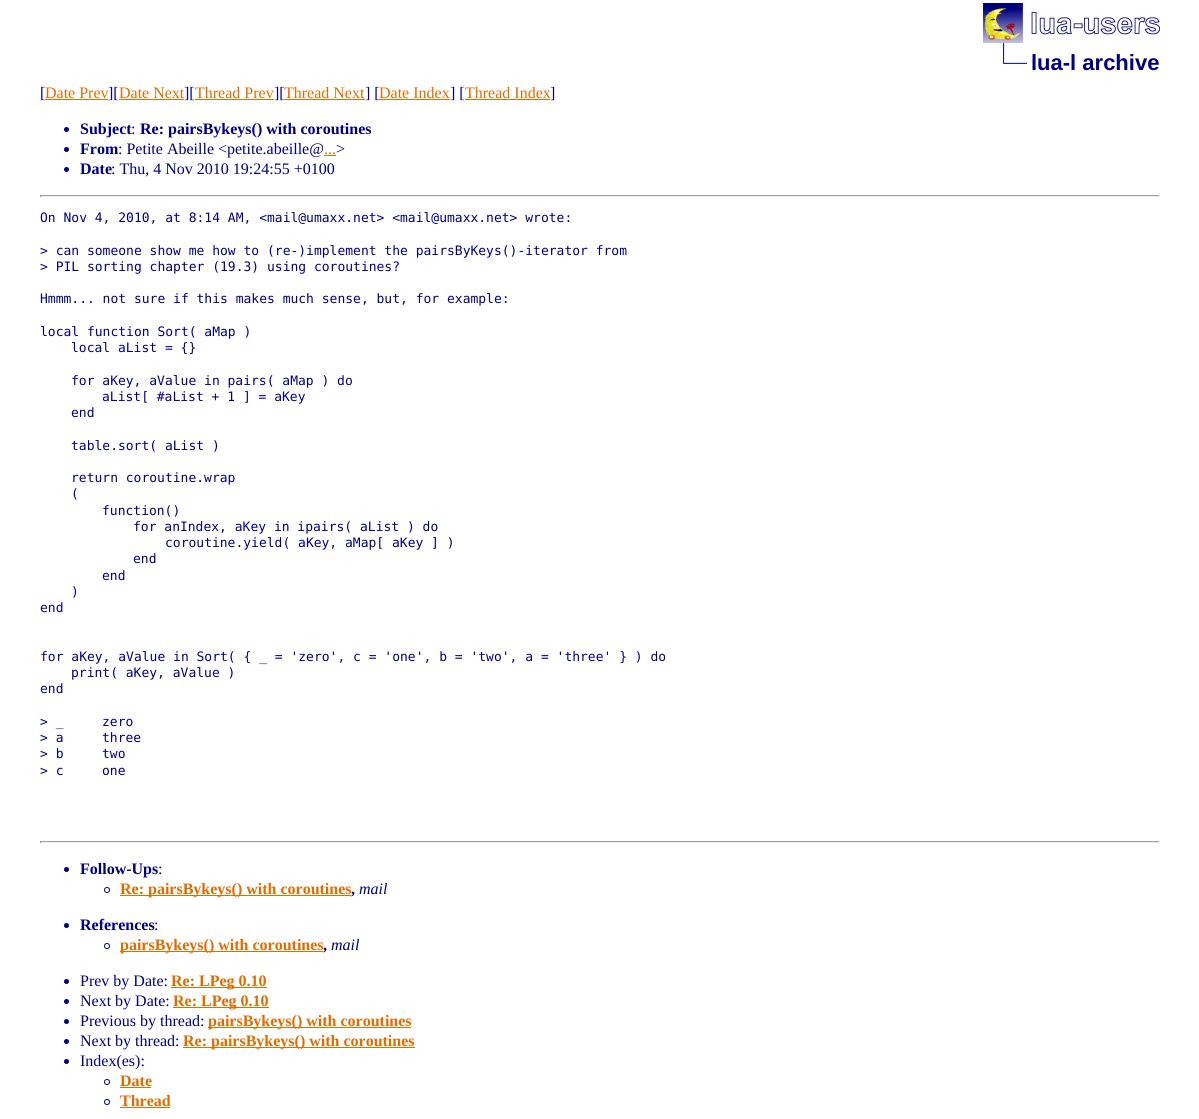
import math
import cairo


def paste(ctx, path, x, y, w, h):
	ctx.save()
	ctx.set_source_surface(cairo.ImageSurface.create_from_png(path), x, y)
	ctx.rectangle(x, y, w, h)
	ctx.fill()
	ctx.restore()

def draw(ctx):
	ctx.set_source_rgb(1, 1, 1)
	ctx.paint()
	paste(ctx, 'media/1.png', 983, 3, 177, 40)
	paste(ctx, 'media/2.png', 1003, 43, 25, 21)
	ctx.select_font_face('Liberation Sans', cairo.FONT_SLANT_NORMAL, cairo.FONT_WEIGHT_BOLD)
	ctx.set_font_size(22)
	ctx.set_source_rgb(0, 0, 0.502)
	ctx.move_to(1031, 70)
	ctx.show_text('lua-l archive')
	ctx.select_font_face('Liberation Serif')
	ctx.set_font_size(16)
	ctx.move_to(40, 98)
	ctx.show_text('[')
	ctx.set_source_rgb(0.875, 0.424, 0)
	ctx.move_to(45, 98)
	ctx.show_text('Date Prev')
	ctx.rectangle(45, 99, 63, 1)
	ctx.fill()
	ctx.set_source_rgb(0, 0, 0.502)
	ctx.move_to(108, 98)
	ctx.show_text('][')
	ctx.set_source_rgb(0.875, 0.424, 0)
	ctx.move_to(119, 98)
	ctx.show_text('Date Next')
	ctx.rectangle(119, 99, 65, 1)
	ctx.fill()
	ctx.set_source_rgb(0, 0, 0.502)
	ctx.move_to(184, 98)
	ctx.show_text('][')
	ctx.set_source_rgb(0.875, 0.424, 0)
	ctx.move_to(195, 98)
	ctx.show_text('Thread Prev')
	ctx.rectangle(195, 99, 79, 1)
	ctx.fill()
	ctx.set_source_rgb(0, 0, 0.502)
	ctx.move_to(274, 98)
	ctx.show_text('][')
	ctx.set_source_rgb(0.875, 0.424, 0)
	ctx.move_to(284, 98)
	ctx.show_text('Thread Next')
	ctx.rectangle(284, 99, 81, 1)
	ctx.fill()
	ctx.set_source_rgb(0, 0, 0.502)
	ctx.move_to(365, 98)
	ctx.show_text('] [')
	ctx.set_source_rgb(0.875, 0.424, 0)
	ctx.move_to(379, 98)
	ctx.show_text('Date Index')
	ctx.rectangle(379, 99, 71, 1)
	ctx.fill()
	ctx.set_source_rgb(0, 0, 0.502)
	ctx.move_to(450, 98)
	ctx.show_text('] [')
	ctx.set_source_rgb(0.875, 0.424, 0)
	ctx.move_to(465, 98)
	ctx.show_text('Thread Index')
	ctx.rectangle(465, 99, 85, 1)
	ctx.fill()
	ctx.set_source_rgb(0, 0, 0.502)
	ctx.move_to(550, 98)
	ctx.show_text(']')
	ctx.new_path()
	ctx.arc(66.5, 129.5, 2.5, 0, 2 * math.pi)
	ctx.fill()
	ctx.select_font_face('Liberation Serif', cairo.FONT_SLANT_NORMAL, cairo.FONT_WEIGHT_BOLD)
	ctx.move_to(80, 134)
	ctx.show_text('Subject')
	ctx.select_font_face('Liberation Serif')
	ctx.move_to(131, 134)
	ctx.show_text(':')
	ctx.select_font_face('Liberation Serif', cairo.FONT_SLANT_NORMAL, cairo.FONT_WEIGHT_BOLD)
	ctx.move_to(140, 134)
	ctx.show_text('Re: pairsBykeys() with coroutines')
	ctx.new_path()
	ctx.arc(66.5, 149.5, 2.5, 0, 2 * math.pi)
	ctx.fill()
	ctx.move_to(80, 154)
	ctx.show_text('From')
	ctx.select_font_face('Liberation Serif')
	ctx.move_to(118, 154)
	ctx.show_text(': Petite Abeille <petite.abeille@')
	ctx.move_to(336, 154)
	ctx.show_text('>')
	ctx.set_source_rgb(0.875, 0.424, 0)
	ctx.move_to(324, 154)
	ctx.show_text('...')
	ctx.rectangle(324, 155, 12, 1)
	ctx.fill()
	ctx.set_source_rgb(0, 0, 0.502)
	ctx.arc(66.5, 169.5, 2.5, 0, 2 * math.pi)
	ctx.fill()
	ctx.select_font_face('Liberation Serif', cairo.FONT_SLANT_NORMAL, cairo.FONT_WEIGHT_BOLD)
	ctx.move_to(80, 174)
	ctx.show_text('Date')
	ctx.select_font_face('Liberation Serif')
	ctx.move_to(111, 174)
	ctx.show_text(': Thu, 4 Nov 2010 19:24:55 +0100')
	ctx.set_source_rgb(0.624, 0.624, 0.624)
	ctx.rectangle(40, 195, 1120, 1)
	ctx.fill()
	ctx.set_source_rgb(0.933, 0.933, 0.933)
	ctx.rectangle(1159, 195, 1, 2)
	ctx.rectangle(40, 196, 1120, 1)
	ctx.fill()
	ctx.set_source_rgb(0.624, 0.624, 0.624)
	ctx.rectangle(40, 195, 1, 2)
	ctx.fill()
	ctx.select_font_face('DejaVu Sans Mono')
	ctx.set_font_size(13)
	ctx.set_source_rgb(0, 0, 0.502)
	for x, y, s in [
		(40, 222, 'On Nov 4, 2010, at 8:14 AM, <mail@umaxx.net> <mail@umaxx.net> wrote:'),
		(40, 255, '> can someone show me how to (re-)implement the pairsByKeys()-iterator from'),
		(40, 271, '> PIL sorting chapter (19.3) using coroutines?'),
		(40, 303, 'Hmmm... not sure if this makes much sense, but, for example:'),
		(40, 336, 'local function Sort( aMap )'),
		(71, 352, 'local aList = {}'),
		(71, 385, 'for aKey, aValue in pairs( aMap ) do'),
		(102, 401, 'aList[ #aList + 1 ] = aKey'),
		(71, 417, 'end'),
		(71, 450, 'table.sort( aList )'),
		(71, 482, 'return coroutine.wrap'),
		(71, 498, '('),
		(102, 515, 'function()'),
		(133, 531, 'for anIndex, aKey in ipairs( aList ) do'),
		(165, 547, 'coroutine.yield( aKey, aMap[ aKey ] )'),
		(133, 563, 'end'),
		(102, 580, 'end'),
		(71, 596, ')'),
		(40, 612, 'end'),
		(40, 661, 'for aKey, aValue in Sort( { _ = \'zero\', c = \'one\', b = \'two\', a = \'three\' } ) do'),
		(71, 677, 'print( aKey, aValue )'),
		(40, 693, 'end'),
		(40, 726, '> _'),
		(102, 726, 'zero'),
		(40, 742, '> a'),
		(102, 742, 'three'),
		(40, 758, '> b'),
		(102, 758, 'two'),
		(40, 775, '> c'),
		(102, 775, 'one'),
	]:
		ctx.move_to(x, y)
		ctx.show_text(s)
	ctx.set_source_rgb(0.624, 0.624, 0.624)
	ctx.rectangle(40, 841, 1120, 1)
	ctx.fill()
	ctx.set_source_rgb(0.933, 0.933, 0.933)
	ctx.rectangle(1159, 841, 1, 2)
	ctx.rectangle(40, 842, 1120, 1)
	ctx.fill()
	ctx.set_source_rgb(0.624, 0.624, 0.624)
	ctx.rectangle(40, 841, 1, 2)
	ctx.fill()
	ctx.set_source_rgb(0, 0, 0.502)
	ctx.arc(66.5, 869.5, 2.5, 0, 2 * math.pi)
	ctx.fill()
	ctx.select_font_face('Liberation Serif', cairo.FONT_SLANT_NORMAL, cairo.FONT_WEIGHT_BOLD)
	ctx.set_font_size(16)
	ctx.move_to(80, 874)
	ctx.show_text('Follow-Ups')
	ctx.select_font_face('Liberation Serif')
	ctx.move_to(158, 874)
	ctx.show_text(':')
	ctx.new_path()
	ctx.arc(107, 890, 2.5, 0, 2 * math.pi)
	ctx.set_line_width(1)
	ctx.stroke()
	ctx.set_source_rgb(0.875, 0.424, 0)
	ctx.rectangle(120, 895, 231, 1)
	ctx.fill()
	ctx.select_font_face('Liberation Serif', cairo.FONT_SLANT_NORMAL, cairo.FONT_WEIGHT_BOLD)
	ctx.move_to(120, 894)
	ctx.show_text('Re: pairsBykeys() with coroutines')
	ctx.select_font_face('Liberation Serif', cairo.FONT_SLANT_ITALIC)
	ctx.set_source_rgb(0, 0, 0.502)
	ctx.move_to(359, 894)
	ctx.show_text('mail')
	ctx.select_font_face('Liberation Serif', cairo.FONT_SLANT_NORMAL, cairo.FONT_WEIGHT_BOLD)
	ctx.move_to(351, 894)
	ctx.show_text(',')
	ctx.new_path()
	ctx.arc(66.5, 925.5, 2.5, 0, 2 * math.pi)
	ctx.fill()
	ctx.move_to(80, 930)
	ctx.show_text('References')
	ctx.select_font_face('Liberation Serif')
	ctx.move_to(154, 930)
	ctx.show_text(':')
	ctx.new_path()
	ctx.arc(107, 946, 2.5, 0, 2 * math.pi)
	ctx.stroke()
	ctx.set_source_rgb(0.875, 0.424, 0)
	ctx.rectangle(120, 951, 203, 1)
	ctx.fill()
	ctx.select_font_face('Liberation Serif', cairo.FONT_SLANT_NORMAL, cairo.FONT_WEIGHT_BOLD)
	ctx.move_to(120, 950)
	ctx.show_text('pairsBykeys() with coroutines')
	ctx.select_font_face('Liberation Serif', cairo.FONT_SLANT_ITALIC)
	ctx.set_source_rgb(0, 0, 0.502)
	ctx.move_to(331, 950)
	ctx.show_text('mail')
	ctx.select_font_face('Liberation Serif', cairo.FONT_SLANT_NORMAL, cairo.FONT_WEIGHT_BOLD)
	ctx.move_to(323, 950)
	ctx.show_text(',')
	ctx.new_path()
	ctx.arc(66.5, 981.5, 2.5, 0, 2 * math.pi)
	ctx.fill()
	ctx.select_font_face('Liberation Serif')
	ctx.move_to(80, 986)
	ctx.show_text('Prev by Date:')
	ctx.set_source_rgb(0.875, 0.424, 0)
	ctx.rectangle(171, 987, 96, 1)
	ctx.fill()
	ctx.select_font_face('Liberation Serif', cairo.FONT_SLANT_NORMAL, cairo.FONT_WEIGHT_BOLD)
	ctx.move_to(171, 986)
	ctx.show_text('Re: LPeg 0.10')
	ctx.set_source_rgb(0, 0, 0.502)
	ctx.new_path()
	ctx.arc(66.5, 1001.5, 2.5, 0, 2 * math.pi)
	ctx.fill()
	ctx.select_font_face('Liberation Serif')
	ctx.move_to(80, 1006)
	ctx.show_text('Next by Date:')
	ctx.set_source_rgb(0.875, 0.424, 0)
	ctx.rectangle(173, 1007, 96, 1)
	ctx.fill()
	ctx.select_font_face('Liberation Serif', cairo.FONT_SLANT_NORMAL, cairo.FONT_WEIGHT_BOLD)
	ctx.move_to(173, 1006)
	ctx.show_text('Re: LPeg 0.10')
	ctx.set_source_rgb(0, 0, 0.502)
	ctx.new_path()
	ctx.arc(66.5, 1021.5, 2.5, 0, 2 * math.pi)
	ctx.fill()
	ctx.select_font_face('Liberation Serif')
	ctx.move_to(80, 1026)
	ctx.show_text('Previous by thread:')
	ctx.set_source_rgb(0.875, 0.424, 0)
	ctx.rectangle(208, 1027, 203, 1)
	ctx.fill()
	ctx.select_font_face('Liberation Serif', cairo.FONT_SLANT_NORMAL, cairo.FONT_WEIGHT_BOLD)
	ctx.move_to(208, 1026)
	ctx.show_text('pairsBykeys() with coroutines')
	ctx.set_source_rgb(0, 0, 0.502)
	ctx.new_path()
	ctx.arc(66.5, 1041.5, 2.5, 0, 2 * math.pi)
	ctx.fill()
	ctx.select_font_face('Liberation Serif')
	ctx.move_to(80, 1046)
	ctx.show_text('Next by thread:')
	ctx.set_source_rgb(0.875, 0.424, 0)
	ctx.rectangle(183, 1047, 232, 1)
	ctx.fill()
	ctx.select_font_face('Liberation Serif', cairo.FONT_SLANT_NORMAL, cairo.FONT_WEIGHT_BOLD)
	ctx.move_to(183, 1046)
	ctx.show_text('Re: pairsBykeys() with coroutines')
	ctx.set_source_rgb(0, 0, 0.502)
	ctx.new_path()
	ctx.arc(66.5, 1061.5, 2.5, 0, 2 * math.pi)
	ctx.fill()
	ctx.select_font_face('Liberation Serif')
	ctx.move_to(80, 1066)
	ctx.show_text('Index(es):')
	ctx.new_path()
	ctx.arc(107, 1082, 2.5, 0, 2 * math.pi)
	ctx.stroke()
	ctx.select_font_face('Liberation Serif', cairo.FONT_SLANT_NORMAL, cairo.FONT_WEIGHT_BOLD)
	ctx.set_source_rgb(0.875, 0.424, 0)
	ctx.move_to(120, 1086)
	ctx.show_text('Date')
	ctx.rectangle(120, 1087, 31, 1)
	ctx.fill()
	ctx.arc(107, 1102, 2.5, 0, 2 * math.pi)
	ctx.set_source_rgb(0, 0, 0.502)
	ctx.stroke()
	ctx.set_source_rgb(0.875, 0.424, 0)
	ctx.move_to(120, 1106)
	ctx.show_text('Thread')
	ctx.rectangle(120, 1107, 50, 1)
	ctx.fill()


surface = cairo.ImageSurface(cairo.FORMAT_RGB24, 1199, 1119)
ctx = cairo.Context(surface)
options = cairo.FontOptions()
options.set_hint_metrics(cairo.HINT_METRICS_OFF)
options.set_hint_style(cairo.HINT_STYLE_NONE)
ctx.set_font_options(options)
ctx.set_miter_limit(4)
draw(ctx)
surface.write_to_png('image.png')
